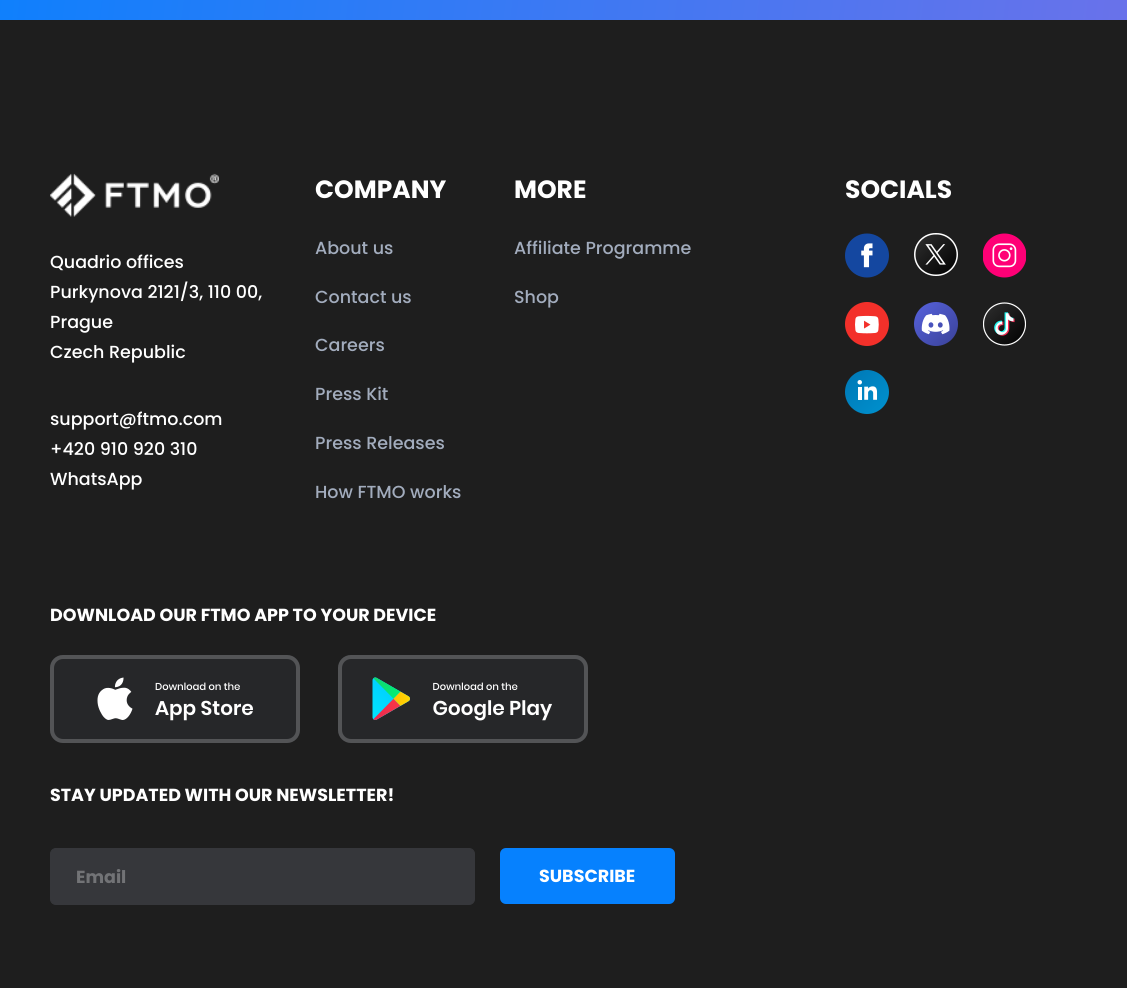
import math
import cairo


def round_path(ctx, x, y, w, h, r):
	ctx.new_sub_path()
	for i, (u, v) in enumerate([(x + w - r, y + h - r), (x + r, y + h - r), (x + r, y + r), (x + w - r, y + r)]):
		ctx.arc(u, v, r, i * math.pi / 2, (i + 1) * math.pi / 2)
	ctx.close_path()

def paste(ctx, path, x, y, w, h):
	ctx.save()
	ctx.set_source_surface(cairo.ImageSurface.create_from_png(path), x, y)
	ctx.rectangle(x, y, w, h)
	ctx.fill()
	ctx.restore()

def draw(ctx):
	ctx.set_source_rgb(0.118, 0.118, 0.118)
	ctx.paint()
	gradient = cairo.LinearGradient(-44, -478, 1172, -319)
	gradient.add_color_stop_rgba(0, 0.027, 0.506, 0.996, 1)
	gradient.add_color_stop_rgba(1, 0.412, 0.447, 0.918, 1)
	ctx.set_source(gradient)
	ctx.rectangle(0, 0, 1127, 20)
	ctx.fill()
	ctx.select_font_face('Poppins', cairo.FONT_SLANT_NORMAL, cairo.FONT_WEIGHT_BOLD)
	ctx.set_font_size(25)
	ctx.set_source_rgb(1, 1, 1)
	ctx.move_to(315, 198)
	ctx.show_text('COMPANY')
	ctx.select_font_face('Poppins Medium')
	ctx.set_font_size(17.5)
	ctx.set_source_rgb(0.635, 0.675, 0.741)
	for x, y, s in [
		(315, 254, 'About us'),
		(315, 303, 'Contact us'),
		(315, 351, 'Careers'),
		(315, 400, 'Press Kit'),
		(315, 449, 'Press Releases'),
		(315, 498, 'How FTMO works'),
	]:
		ctx.move_to(x, y)
		ctx.show_text(s)
	ctx.select_font_face('Poppins', cairo.FONT_SLANT_NORMAL, cairo.FONT_WEIGHT_BOLD)
	ctx.set_font_size(25)
	ctx.set_source_rgb(1, 1, 1)
	ctx.move_to(514, 198)
	ctx.show_text('MORE')
	ctx.select_font_face('Poppins Medium')
	ctx.set_font_size(17.5)
	ctx.set_source_rgb(0.635, 0.675, 0.741)
	ctx.move_to(514, 254)
	ctx.show_text('Affiliate Programme')
	ctx.move_to(514, 303)
	ctx.show_text('Shop')
	ctx.select_font_face('Poppins', cairo.FONT_SLANT_NORMAL, cairo.FONT_WEIGHT_BOLD)
	ctx.set_font_size(25)
	ctx.set_source_rgb(1, 1, 1)
	ctx.move_to(845, 198)
	ctx.show_text('SOCIALS')
	paste(ctx, 'media/1.png', 845, 233, 44, 45)
	paste(ctx, 'media/2.png', 914, 233, 44, 43)
	paste(ctx, 'media/3.png', 983, 233, 43, 45)
	paste(ctx, 'media/4.png', 845, 302, 44, 44)
	paste(ctx, 'media/5.png', 914, 302, 44, 44)
	paste(ctx, 'media/6.png', 983, 302, 43, 44)
	paste(ctx, 'media/7.png', 845, 370, 44, 44)
	paste(ctx, 'media/8.png', 50, 173, 169, 44)
	ctx.select_font_face('Poppins Medium')
	ctx.set_font_size(17.5)
	for x, y, s in [
		(50, 268, 'Quadrio offices'),
		(50, 298, 'Purkynova 2121/3, 110 00,'),
		(50, 328, 'Prague'),
		(50, 358, 'Czech Republic'),
		(50, 425, 'support@ftmo.com'),
		(50, 455, '+420 910 920 310'),
		(50, 485, 'WhatsApp'),
	]:
		ctx.move_to(x, y)
		ctx.show_text(s)
	ctx.select_font_face('Poppins', cairo.FONT_SLANT_NORMAL, cairo.FONT_WEIGHT_BOLD)
	ctx.move_to(50, 621)
	ctx.show_text('DOWNLOAD OUR FTMO APP TO YOUR DEVICE')
	paste(ctx, 'media/9.png', 50, 655, 250, 88)
	paste(ctx, 'media/10.png', 338, 655, 250, 88)
	ctx.move_to(50, 801)
	ctx.show_text('STAY UPDATED WITH OUR NEWSLETTER!')
	ctx.set_source_rgb(0.212, 0.216, 0.231)
	round_path(ctx, 50.5, 848.5, 424, 56, 5.5)
	ctx.fill_preserve()
	ctx.set_line_width(1)
	ctx.stroke()
	ctx.set_source_rgb(0.447, 0.451, 0.463)
	ctx.move_to(76, 883)
	ctx.show_text('Email')
	ctx.set_source_rgb(0.027, 0.506, 0.996)
	round_path(ctx, 500, 848, 175, 56, 6)
	ctx.fill()
	ctx.set_source_rgb(1, 1, 1)
	ctx.move_to(539, 882)
	ctx.show_text('SUBSCRIBE')


surface = cairo.ImageSurface(cairo.FORMAT_RGB24, 1127, 988)
ctx = cairo.Context(surface)
options = cairo.FontOptions()
options.set_hint_metrics(cairo.HINT_METRICS_OFF)
options.set_hint_style(cairo.HINT_STYLE_NONE)
ctx.set_font_options(options)
ctx.set_miter_limit(4)
draw(ctx)
surface.write_to_png('image.png')
